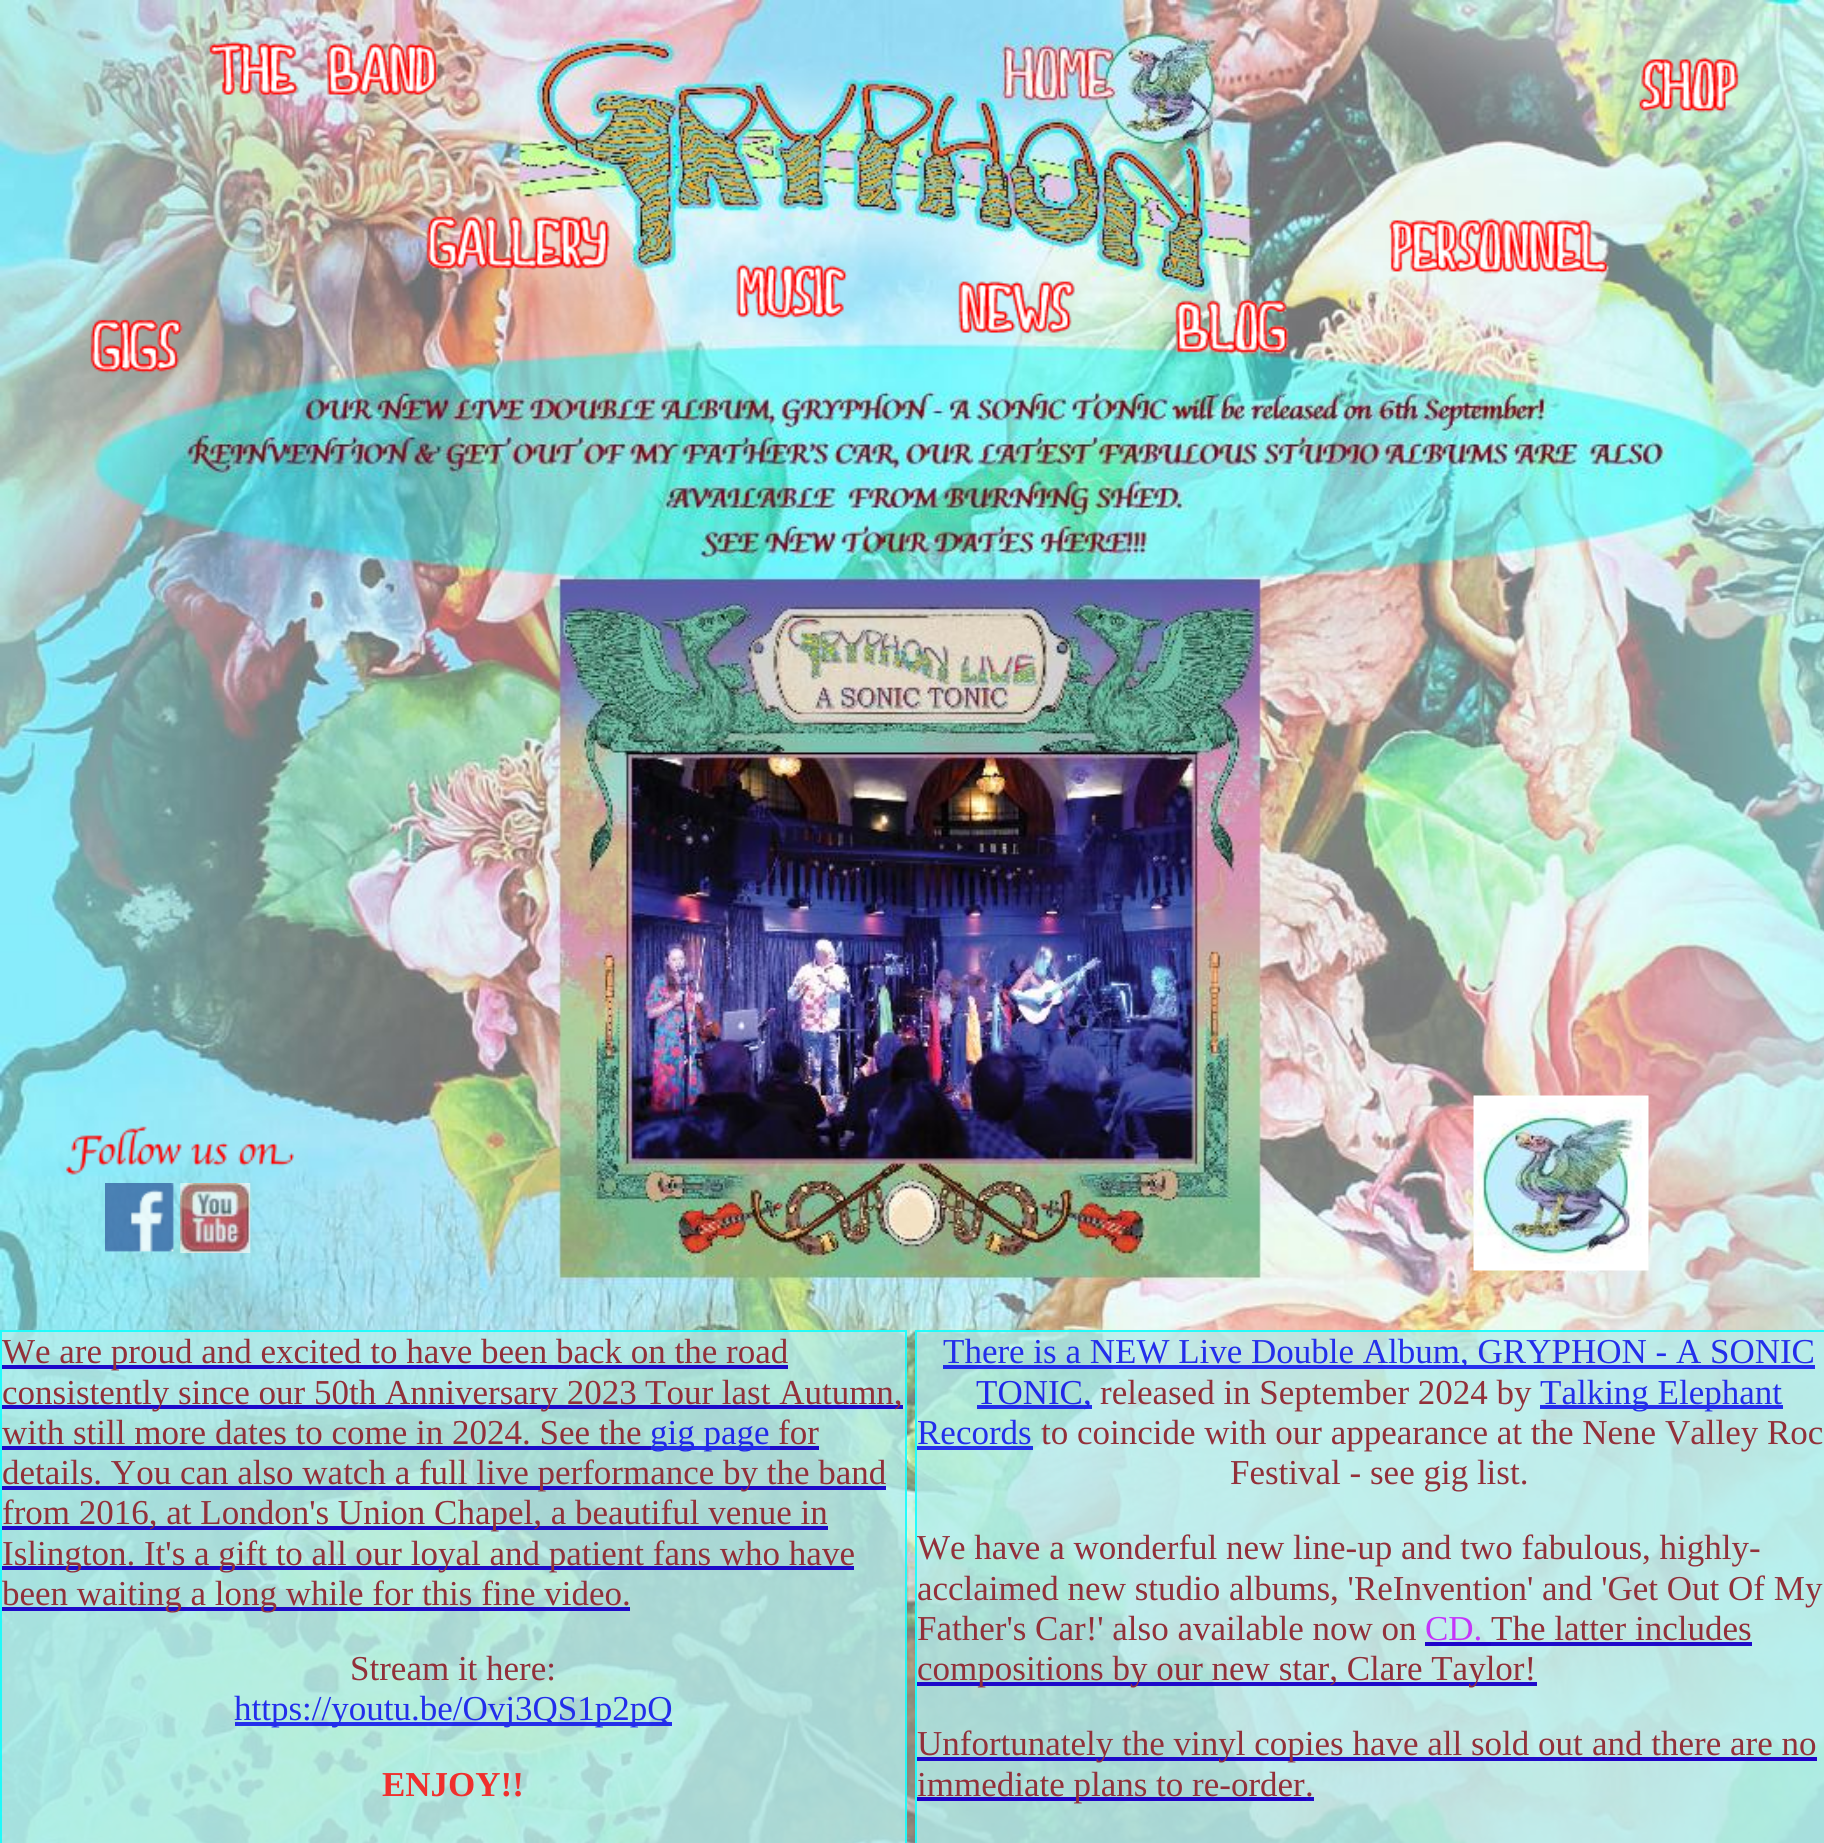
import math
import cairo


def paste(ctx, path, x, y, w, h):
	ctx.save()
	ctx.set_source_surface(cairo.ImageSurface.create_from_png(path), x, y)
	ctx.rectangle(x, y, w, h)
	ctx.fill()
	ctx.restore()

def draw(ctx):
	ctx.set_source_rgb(1, 1, 1)
	ctx.paint()
	paste(ctx, 'media/1.png', 0, 0, 1824, 1843)
	paste(ctx, 'media/2.png', 208, 41, 230, 54)
	paste(ctx, 'media/3.png', 1639, 57, 100, 56)
	paste(ctx, 'media/4.png', 426, 216, 184, 54)
	paste(ctx, 'media/5.png', 1389, 218, 220, 56)
	paste(ctx, 'media/6.png', 90, 318, 93, 56)
	paste(ctx, 'media/7.png', 736, 264, 112, 55)
	paste(ctx, 'media/8.png', 958, 281, 117, 54)
	paste(ctx, 'media/9.png', 1175, 298, 114, 56)
	paste(ctx, 'media/10.png', 65, 1126, 229, 49)
	paste(ctx, 'media/11.png', 105, 1183, 69, 69)
	paste(ctx, 'media/12.png', 180, 1183, 71, 70)
	paste(ctx, 'media/13.png', 1473, 1095, 176, 176)
	ctx.set_source_rgba(0.706, 0.929, 0.918, 0.8)
	ctx.rectangle(0, 1330, 907, 513)
	ctx.fill()
	ctx.rectangle(1, 1331, 905, 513)
	ctx.set_source_rgba(0, 1, 1, 0.8)
	ctx.stroke()
	ctx.set_source_rgba(0.545, 0.012, 0.059, 0.8)
	ctx.rectangle(2, 1365, 786, 4)
	ctx.fill()
	ctx.set_source_rgba(0, 0, 0.933, 0.8)
	ctx.rectangle(2, 1365, 786, 4)
	ctx.fill()
	ctx.select_font_face('Liberation Serif')
	ctx.set_font_size(35)
	ctx.set_source_rgb(0.573, 0.188, 0.227)
	ctx.move_to(2, 1363)
	ctx.show_text('We are proud and excited to have been back on the road')
	ctx.set_source_rgba(0.545, 0.012, 0.059, 0.8)
	ctx.rectangle(2, 1405, 644, 4)
	ctx.fill()
	ctx.set_source_rgba(0, 0, 0.933, 0.8)
	ctx.rectangle(2, 1405, 644, 4)
	ctx.fill()
	ctx.set_source_rgb(0.573, 0.188, 0.227)
	ctx.move_to(2, 1404)
	ctx.show_text('consistently since our 50th Anniversary 2023')
	ctx.set_source_rgba(0.545, 0.012, 0.059, 0.8)
	ctx.rectangle(646, 1405, 257, 4)
	ctx.fill()
	ctx.set_source_rgba(0, 0, 0.933, 0.8)
	ctx.rectangle(646, 1405, 257, 4)
	ctx.fill()
	ctx.set_source_rgb(0.573, 0.188, 0.227)
	ctx.move_to(645, 1404)
	ctx.show_text('Tour last Autumn,')
	ctx.move_to(2, 1444)
	ctx.show_text('with still more dates to come in 2024. See the')
	ctx.set_source_rgba(0.545, 0.012, 0.059, 0.8)
	ctx.rectangle(2, 1446, 649, 4)
	ctx.fill()
	ctx.set_source_rgba(0, 0, 0.933, 0.8)
	ctx.rectangle(2, 1446, 649, 4)
	ctx.fill()
	ctx.rectangle(651, 1446, 119, 4)
	ctx.fill()
	ctx.set_source_rgb(0.125, 0.157, 0.914)
	ctx.move_to(650, 1444)
	ctx.show_text('gig page')
	ctx.set_source_rgb(0.573, 0.188, 0.227)
	ctx.move_to(778, 1444)
	ctx.show_text('for')
	ctx.set_source_rgba(0.545, 0.012, 0.059, 0.8)
	ctx.rectangle(770, 1446, 49, 4)
	ctx.fill()
	ctx.set_source_rgba(0, 0, 0.933, 0.8)
	ctx.rectangle(770, 1446, 49, 4)
	ctx.fill()
	ctx.set_source_rgba(0.545, 0.012, 0.059, 0.8)
	ctx.rectangle(2, 1486, 721, 4)
	ctx.fill()
	ctx.set_source_rgba(0, 0, 0.933, 0.8)
	ctx.rectangle(2, 1486, 721, 4)
	ctx.fill()
	ctx.set_source_rgb(0.573, 0.188, 0.227)
	ctx.move_to(2, 1484)
	ctx.show_text('details. You can also watch a full live performance')
	ctx.set_source_rgba(0.545, 0.012, 0.059, 0.8)
	ctx.rectangle(723, 1486, 163, 4)
	ctx.fill()
	ctx.set_source_rgba(0, 0, 0.933, 0.8)
	ctx.rectangle(723, 1486, 163, 4)
	ctx.fill()
	ctx.set_source_rgb(0.573, 0.188, 0.227)
	ctx.move_to(723, 1484)
	ctx.show_text('by the band')
	ctx.set_source_rgba(0.545, 0.012, 0.059, 0.8)
	ctx.rectangle(2, 1526, 826, 4)
	ctx.fill()
	ctx.set_source_rgba(0, 0, 0.933, 0.8)
	ctx.rectangle(2, 1526, 826, 4)
	ctx.fill()
	ctx.set_source_rgb(0.573, 0.188, 0.227)
	ctx.move_to(2, 1524)
	ctx.show_text('from 2016, at London\'s Union Chapel, a beautiful venue in')
	ctx.set_source_rgba(0.545, 0.012, 0.059, 0.8)
	ctx.rectangle(2, 1566, 852, 4)
	ctx.fill()
	ctx.set_source_rgba(0, 0, 0.933, 0.8)
	ctx.rectangle(2, 1566, 852, 4)
	ctx.fill()
	ctx.set_source_rgb(0.573, 0.188, 0.227)
	ctx.move_to(2, 1565)
	ctx.show_text('Islington. It\'s a gift to all our loyal and patient fans who have')
	ctx.set_source_rgba(0.545, 0.012, 0.059, 0.8)
	ctx.rectangle(2, 1607, 628, 4)
	ctx.fill()
	ctx.set_source_rgba(0, 0, 0.933, 0.8)
	ctx.rectangle(2, 1607, 628, 4)
	ctx.fill()
	ctx.set_source_rgb(0.573, 0.188, 0.227)
	ctx.move_to(2, 1605)
	ctx.show_text('been waiting a long while for this fine video.')
	ctx.move_to(350, 1680)
	ctx.show_text('Stream it here:')
	ctx.set_source_rgba(0, 0, 0.933, 0.8)
	ctx.rectangle(235, 1722, 437, 4)
	ctx.fill()
	ctx.set_source_rgb(0.137, 0.18, 0.918)
	ctx.move_to(234, 1720)
	ctx.show_text('https://youtu.be/Ovj3QS1p2pQ')
	ctx.select_font_face('Liberation Serif', cairo.FONT_SLANT_NORMAL, cairo.FONT_WEIGHT_BOLD)
	ctx.set_source_rgb(0.941, 0.184, 0.176)
	ctx.move_to(382, 1796)
	ctx.show_text('ENJOY!!')
	ctx.set_source_rgba(0.706, 0.929, 0.918, 0.8)
	ctx.rectangle(915, 1330, 909, 513)
	ctx.fill()
	ctx.rectangle(916, 1331, 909, 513)
	ctx.set_source_rgba(0, 1, 1, 0.8)
	ctx.stroke()
	ctx.set_source_rgba(0, 0, 0.933, 0.8)
	ctx.rectangle(943, 1365, 872, 4)
	ctx.fill()
	ctx.select_font_face('Liberation Serif')
	ctx.set_source_rgb(0.137, 0.18, 0.918)
	ctx.move_to(943, 1363)
	ctx.show_text('There is a NEW Live Double Album, GRYPHON - A SONIC')
	ctx.set_source_rgba(0, 0, 0.933, 0.8)
	ctx.rectangle(977, 1405, 115, 4)
	ctx.fill()
	ctx.set_source_rgb(0.125, 0.157, 0.914)
	ctx.move_to(976, 1404)
	ctx.show_text('TONIC,')
	ctx.set_source_rgb(0.573, 0.188, 0.227)
	ctx.move_to(1100, 1404)
	ctx.show_text('released in September 2024 by')
	ctx.set_source_rgba(0, 0, 0.933, 0.8)
	ctx.rectangle(1540, 1405, 243, 4)
	ctx.fill()
	ctx.set_source_rgb(0.137, 0.18, 0.918)
	ctx.move_to(1540, 1404)
	ctx.show_text('Talking Elephant')
	ctx.move_to(917, 1444)
	ctx.show_text('Records')
	ctx.set_source_rgba(0, 0, 0.933, 0.8)
	ctx.rectangle(917, 1446, 116, 4)
	ctx.fill()
	ctx.set_source_rgb(0.573, 0.188, 0.227)
	for x, y, s in [
		(1041, 1444, 'to coincide with our appearance at the Nene Valley Roc'),
		(1230, 1484, 'Festival - see gig list.'),
		(917, 1559, 'We have a wonderful new line-up and two fabulous, highly-'),
		(917, 1600, 'acclaimed new studio albums, \'ReInvention\' and \'Get Out Of My'),
		(917, 1640, 'Father\'s Car!\' also available now on'),
	]:
		ctx.move_to(x, y)
		ctx.show_text(s)
	ctx.set_source_rgb(0.773, 0.208, 0.98)
	ctx.move_to(1425, 1640)
	ctx.show_text('CD.')
	ctx.set_source_rgb(0.118, 0.012, 0.796)
	ctx.rectangle(1425, 1642, 66, 4)
	ctx.fill()
	ctx.set_source_rgb(0.573, 0.188, 0.227)
	ctx.move_to(1491, 1640)
	ctx.show_text('The latter')
	ctx.set_source_rgba(0.545, 0.012, 0.059, 0.8)
	ctx.rectangle(1491, 1642, 144, 4)
	ctx.fill()
	ctx.set_source_rgba(0, 0, 0.933, 0.8)
	ctx.rectangle(1491, 1642, 144, 4)
	ctx.fill()
	ctx.set_source_rgb(0.573, 0.188, 0.227)
	ctx.move_to(1635, 1640)
	ctx.show_text('includes')
	ctx.set_source_rgba(0.545, 0.012, 0.059, 0.8)
	ctx.rectangle(1635, 1642, 117, 4)
	ctx.fill()
	ctx.set_source_rgba(0, 0, 0.933, 0.8)
	ctx.rectangle(1635, 1642, 117, 4)
	ctx.fill()
	ctx.set_source_rgba(0.545, 0.012, 0.059, 0.8)
	ctx.rectangle(917, 1682, 620, 4)
	ctx.fill()
	ctx.set_source_rgba(0, 0, 0.933, 0.8)
	ctx.rectangle(917, 1682, 620, 4)
	ctx.fill()
	ctx.set_source_rgb(0.573, 0.188, 0.227)
	ctx.move_to(917, 1680)
	ctx.show_text('compositions by our new star, Clare Taylor!')
	ctx.set_source_rgba(0.545, 0.012, 0.059, 0.8)
	ctx.rectangle(917, 1757, 665, 4)
	ctx.fill()
	ctx.set_source_rgba(0, 0, 0.933, 0.8)
	ctx.rectangle(917, 1757, 665, 4)
	ctx.fill()
	ctx.set_source_rgb(0.573, 0.188, 0.227)
	ctx.move_to(917, 1755)
	ctx.show_text('Unfortunately the vinyl copies have all sold out')
	ctx.set_source_rgb(0.118, 0.012, 0.796)
	ctx.rectangle(1582, 1757, 9, 4)
	ctx.fill()
	ctx.set_source_rgb(0.573, 0.188, 0.227)
	ctx.move_to(1592, 1755)
	ctx.show_text('and there are no')
	ctx.set_source_rgb(0.118, 0.004, 0.788)
	ctx.rectangle(1591, 1757, 226, 4)
	ctx.fill()
	ctx.rectangle(917, 1797, 389, 4)
	ctx.fill()
	ctx.set_source_rgb(0.573, 0.188, 0.227)
	ctx.move_to(917, 1796)
	ctx.show_text('immediate plans to re-order')
	ctx.move_to(1305, 1796)
	ctx.show_text('.')
	ctx.set_source_rgb(0.118, 0.039, 0.792)
	ctx.rectangle(1306, 1797, 8, 4)
	ctx.fill()


surface = cairo.ImageSurface(cairo.FORMAT_RGB24, 1824, 1843)
ctx = cairo.Context(surface)
options = cairo.FontOptions()
options.set_hint_metrics(cairo.HINT_METRICS_OFF)
options.set_hint_style(cairo.HINT_STYLE_NONE)
ctx.set_font_options(options)
ctx.set_miter_limit(4)
draw(ctx)
surface.write_to_png('image.png')
